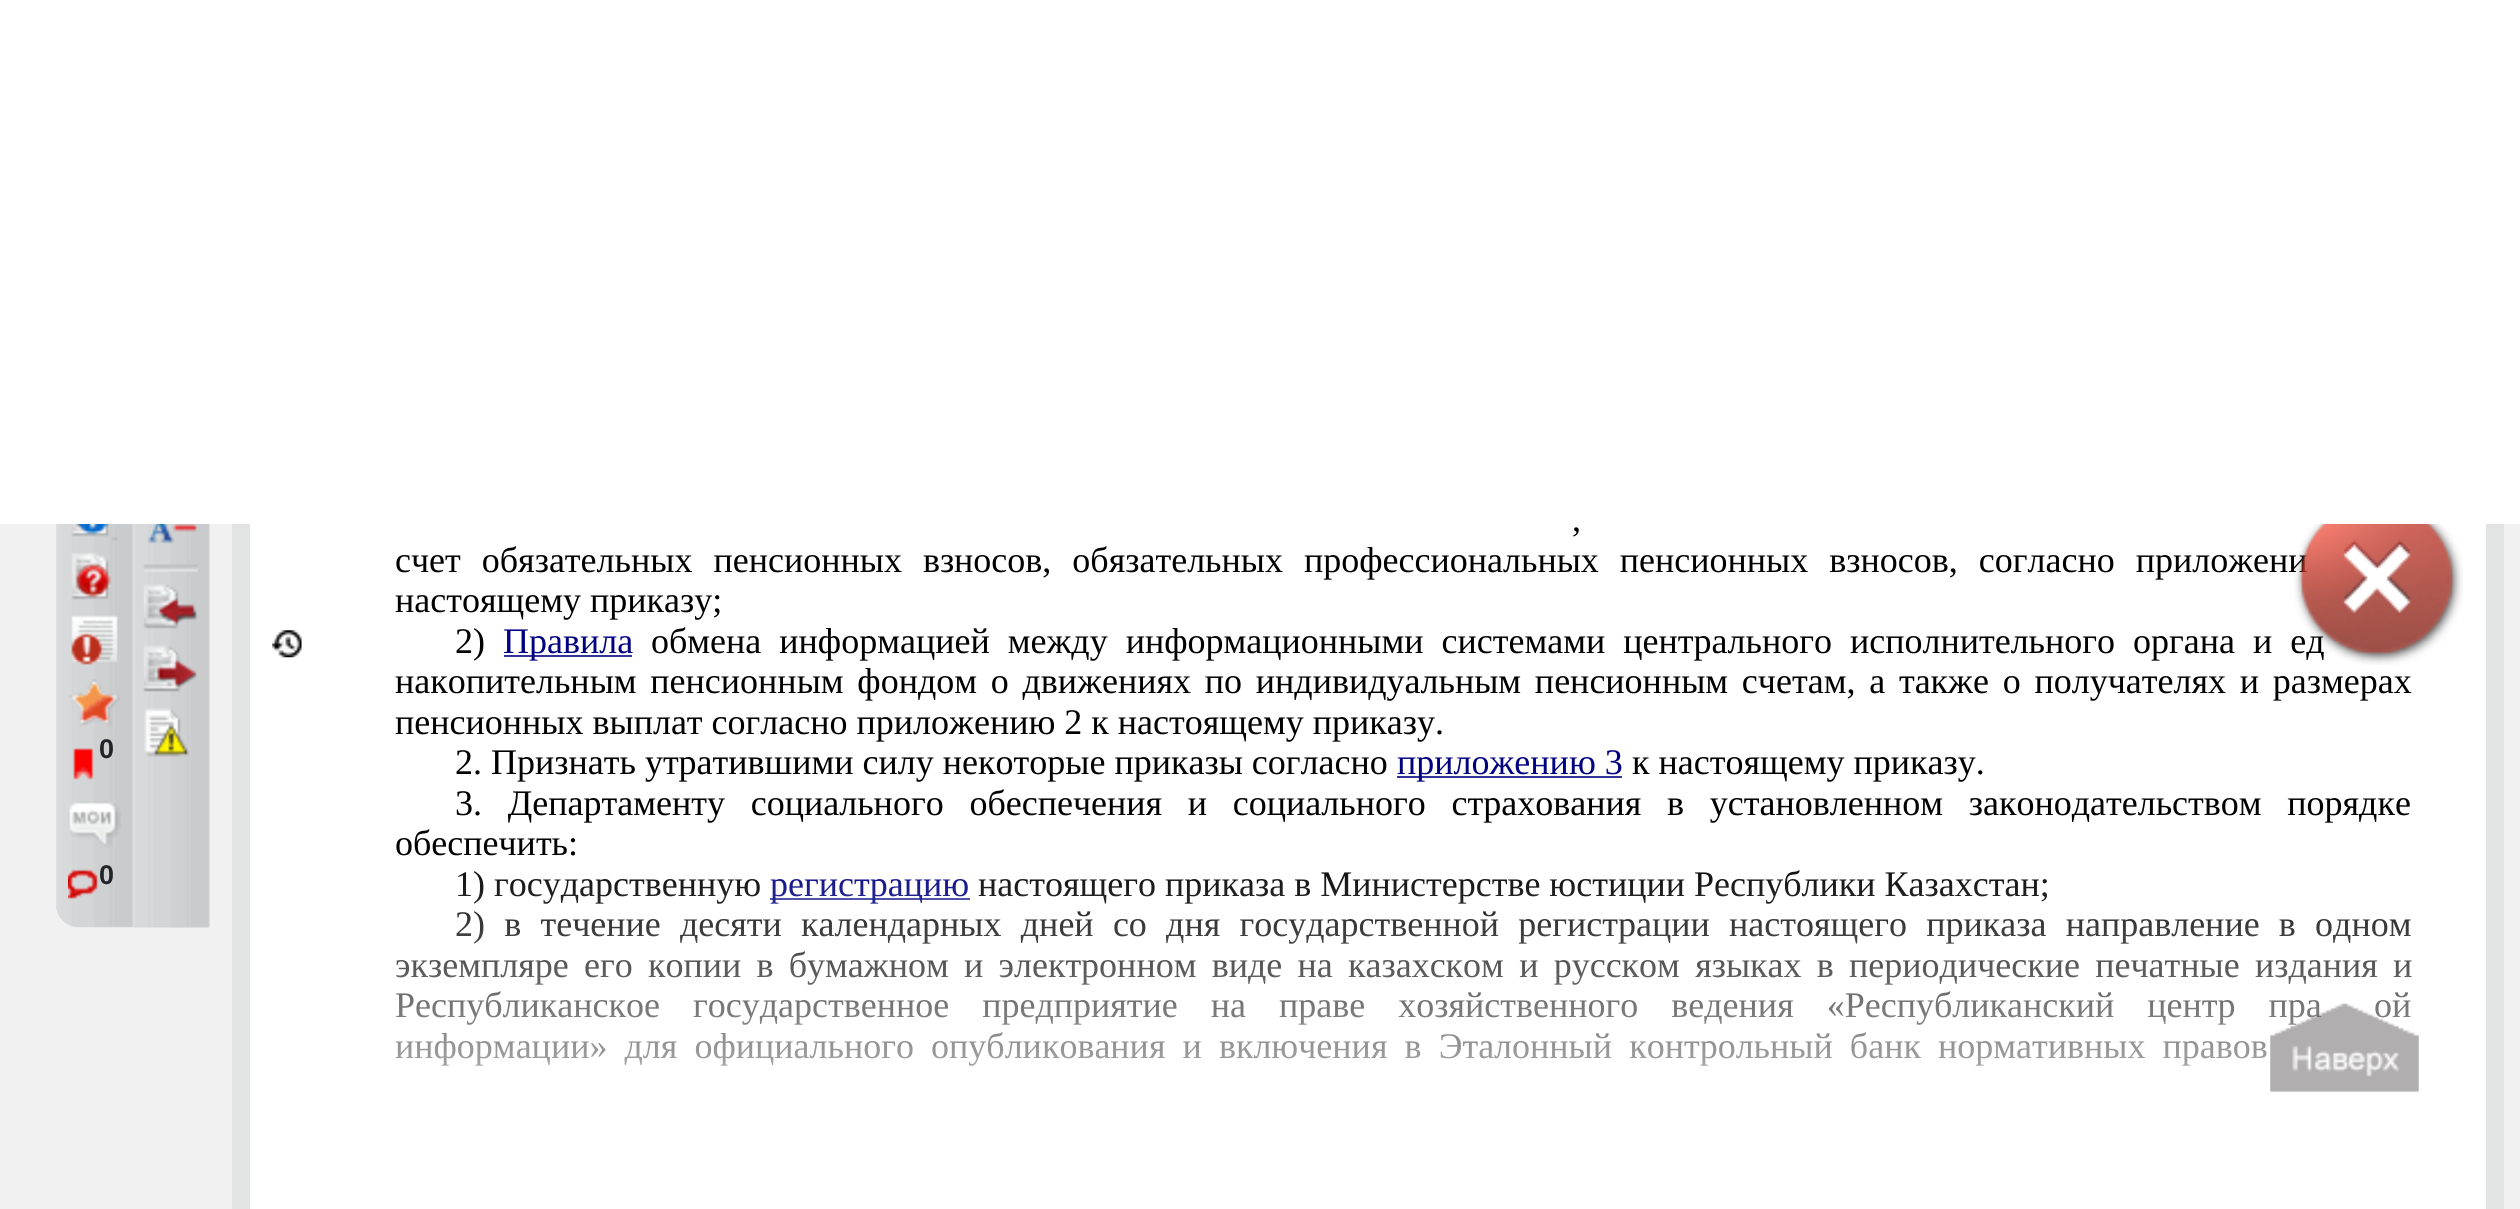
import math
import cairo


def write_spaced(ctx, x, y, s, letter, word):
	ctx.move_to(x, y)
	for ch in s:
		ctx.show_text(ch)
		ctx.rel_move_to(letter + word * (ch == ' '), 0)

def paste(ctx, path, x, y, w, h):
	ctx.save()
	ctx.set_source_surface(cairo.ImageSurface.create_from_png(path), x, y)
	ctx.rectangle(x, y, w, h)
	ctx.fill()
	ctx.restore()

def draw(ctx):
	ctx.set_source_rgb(0.945, 0.945, 0.945)
	ctx.paint()
	ctx.set_source_rgb(0.82, 0.82, 0.812)
	ctx.new_path()
	ctx.move_to(56, 149)
	ctx.line_to(133, 149)
	ctx.line_to(133, 927)
	ctx.line_to(79, 927)
	ctx.curve_to(66.5, 927, 56, 916.5, 56, 904)
	ctx.close_path()
	ctx.fill()
	ctx.set_source_rgb(1, 1, 1)
	ctx.rectangle(250, 524, 2236, 685)
	ctx.fill()
	ctx.rectangle(241, -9, 2254, 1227)
	ctx.set_source_rgb(0.89, 0.898, 0.894)
	ctx.set_line_width(18)
	ctx.stroke()
	ctx.set_source_rgb(1, 1, 1)
	ctx.rectangle(0, 0, 2520, 524)
	ctx.fill()
	paste(ctx, 'media/1.png', 56, 524, 76, 404)
	paste(ctx, 'media/2.png', 71, 524, 47, 17)
	paste(ctx, 'media/3.png', 71, 552, 41, 48)
	paste(ctx, 'media/4.png', 71, 615, 47, 50)
	paste(ctx, 'media/5.png', 68, 679, 52, 48)
	paste(ctx, 'media/6.png', 73, 748, 21, 32)
	ctx.select_font_face('Liberation Sans', cairo.FONT_SLANT_NORMAL, cairo.FONT_WEIGHT_BOLD)
	ctx.set_font_size(27)
	ctx.set_source_rgb(0.129, 0.145, 0.161)
	ctx.move_to(99, 758)
	ctx.show_text('0')
	paste(ctx, 'media/7.png', 68, 801, 53, 47)
	paste(ctx, 'media/8.png', 68, 869, 30, 30)
	ctx.move_to(99, 884)
	ctx.show_text('0')
	ctx.set_source_rgb(0.82, 0.82, 0.812)
	ctx.rectangle(133, 524, 76, 403)
	ctx.fill()
	paste(ctx, 'media/9.png', 132, 524, 78, 404)
	paste(ctx, 'media/10.png', 147, 524, 51, 20)
	paste(ctx, 'media/11.png', 143, 564, 55, 8)
	paste(ctx, 'media/12.png', 143, 584, 55, 45)
	paste(ctx, 'media/13.png', 143, 645, 54, 48)
	paste(ctx, 'media/14.png', 144, 708, 46, 49)
	ctx.select_font_face('Liberation Serif')
	ctx.set_font_size(36)
	ctx.set_source_rgb(0, 0, 0)
	write_spaced(ctx, 395, 572, 'счет обязательных пенсионных взносов, обязательных профессиональных пенсионных взносов, согласно приложени', 0, 12)
	write_spaced(ctx, 651, 653, 'обмена информацией между информационными системами центрального исполнительного органа и ед', 0, 9)
	paste(ctx, 'media/15.png', 2294, 524, 169, 141)
	write_spaced(ctx, 1572, 531, ',', 0, 2)
	ctx.move_to(395, 612)
	ctx.show_text('настоящему приказу;')
	paste(ctx, 'media/16.png', 272, 630, 30, 28)
	ctx.move_to(455, 653)
	ctx.show_text('2)')
	ctx.set_source_rgb(0.2, 0.2, 0.6)
	ctx.rectangle(504, 655, 128, 2)
	ctx.fill()
	ctx.set_source_rgb(0, 0, 0.502)
	ctx.move_to(503, 653)
	ctx.show_text('Правила')
	ctx.set_source_rgb(0, 0, 0)
	write_spaced(ctx, 395, 693, 'накопительным пенсионным фондом о движениях по индивидуальным пенсионным счетам, а также о получателях и размерах', 0, 4.75)
	ctx.move_to(395, 734)
	ctx.show_text('пенсионных выплат согласно приложению 2 к настоящему приказу.')
	ctx.move_to(455, 774)
	ctx.show_text('2. Признать утратившими силу некоторые приказы согласно')
	ctx.set_source_rgb(0.2, 0.2, 0.6)
	ctx.rectangle(1397, 776, 225, 2)
	ctx.fill()
	ctx.set_source_rgb(0, 0, 0.502)
	ctx.move_to(1397, 774)
	ctx.show_text('приложению 3')
	ctx.set_source_rgb(0, 0, 0)
	ctx.move_to(1632, 774)
	ctx.show_text('к настоящему приказу.')
	write_spaced(ctx, 455, 815, '3. Департаменту социального обеспечения и социального страхования в установленном законодательством порядке', 0, 16.75)
	ctx.move_to(395, 855)
	ctx.show_text('обеспечить:')
	ctx.move_to(455, 896)
	ctx.show_text('1) государственную')
	ctx.set_source_rgb(0.2, 0.2, 0.6)
	ctx.rectangle(770, 898, 200, 2)
	ctx.fill()
	ctx.set_source_rgb(0, 0, 0.502)
	ctx.move_to(770, 896)
	ctx.show_text('регистрацию')
	ctx.set_source_rgb(0, 0, 0)
	ctx.move_to(978, 896)
	ctx.show_text('настоящего приказа в Министерстве юстиции Республики Казахстан;')
	write_spaced(ctx, 455, 936, '2) в течение десяти календарных дней со дня государственной регистрации настоящего приказа направление в одном', 0, 10.25)
	write_spaced(ctx, 395, 977, 'экземпляре его копии в бумажном и электронном виде на казахском и русском языках в периодические печатные издания и', 0, 6.25)
	write_spaced(ctx, 395, 1017, 'Республиканское государственное предприятие на праве хозяйственного ведения «Республиканский центр пра', 0, 24)
	write_spaced(ctx, 2374, 1017, 'ой', 0, 24)
	write_spaced(ctx, 395, 1058, 'информации» для официального опубликования и включения в Эталонный контрольный банк нормативных правов', 0, 8.1)
	gradient = cairo.LinearGradient(1348, 850, 1348, 1188)
	gradient.add_color_stop_rgba(0, 1, 1, 1, 0)
	gradient.add_color_stop_rgba(1, 1, 1, 1, 1)
	ctx.set_source(gradient)
	ctx.rectangle(395, 870, 2016, 196)
	ctx.fill()
	paste(ctx, 'media/17.png', 2270, 1003, 149, 89)


surface = cairo.ImageSurface(cairo.FORMAT_RGB24, 2520, 1209)
ctx = cairo.Context(surface)
options = cairo.FontOptions()
options.set_hint_metrics(cairo.HINT_METRICS_OFF)
options.set_hint_style(cairo.HINT_STYLE_NONE)
ctx.set_font_options(options)
ctx.set_miter_limit(4)
draw(ctx)
surface.write_to_png('image.png')
